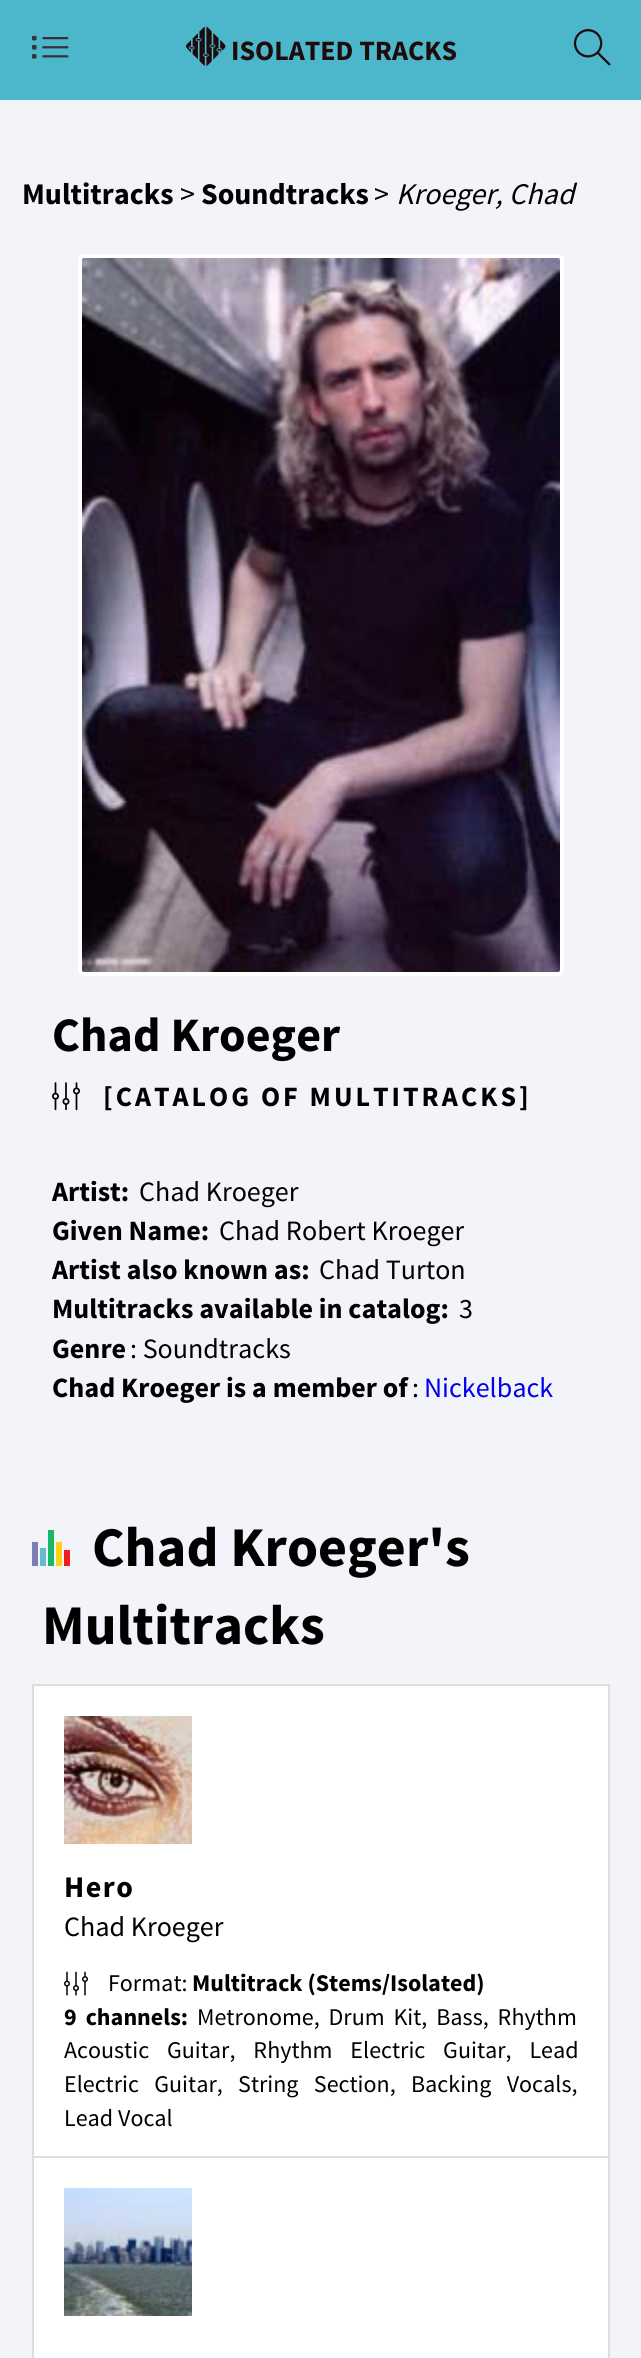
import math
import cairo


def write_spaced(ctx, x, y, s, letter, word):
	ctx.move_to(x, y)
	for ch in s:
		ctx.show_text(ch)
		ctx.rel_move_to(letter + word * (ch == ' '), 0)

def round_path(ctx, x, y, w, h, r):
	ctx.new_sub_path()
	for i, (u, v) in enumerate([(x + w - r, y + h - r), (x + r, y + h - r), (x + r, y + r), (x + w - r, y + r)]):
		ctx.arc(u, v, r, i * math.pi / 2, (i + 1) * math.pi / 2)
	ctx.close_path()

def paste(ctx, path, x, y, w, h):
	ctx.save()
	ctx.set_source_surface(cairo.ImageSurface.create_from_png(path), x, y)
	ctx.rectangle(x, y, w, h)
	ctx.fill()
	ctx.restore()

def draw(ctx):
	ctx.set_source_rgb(0.949, 0.957, 0.973)
	ctx.paint()
	ctx.set_source_rgb(0.298, 0.714, 0.796)
	ctx.rectangle(0, 0, 641, 100)
	ctx.fill()
	paste(ctx, 'media/1.png', 32, 35, 37, 24)
	paste(ctx, 'media/2.png', 186, 26, 40, 40)
	ctx.select_font_face('Source Sans Pro', cairo.FONT_SLANT_NORMAL, cairo.FONT_WEIGHT_BOLD)
	ctx.set_font_size(28)
	ctx.set_source_rgb(0.118, 0.047, 0.047)
	ctx.move_to(231, 60)
	ctx.show_text('ISOLATED TRACKS')
	paste(ctx, 'media/3.png', 573, 29, 38, 37)
	ctx.set_font_size(30)
	ctx.set_source_rgb(0, 0, 0)
	ctx.move_to(22, 204)
	ctx.show_text('Multitracks')
	ctx.select_font_face('Source Sans Pro')
	ctx.move_to(180, 204)
	ctx.show_text('>')
	ctx.select_font_face('Source Sans Pro', cairo.FONT_SLANT_NORMAL, cairo.FONT_WEIGHT_BOLD)
	ctx.move_to(201, 204)
	ctx.show_text('Soundtracks')
	ctx.select_font_face('Source Sans Pro')
	ctx.move_to(374, 204)
	ctx.show_text('>')
	ctx.select_font_face('Source Sans Pro', cairo.FONT_SLANT_ITALIC)
	ctx.move_to(396, 204)
	ctx.show_text('Kroeger, Chad')
	round_path(ctx, 80, 256, 482, 718, 4)
	ctx.set_source_rgb(1, 1, 1)
	ctx.set_line_width(4)
	ctx.stroke()
	paste(ctx, 'media/4.png', 82, 258, 478, 714)
	ctx.select_font_face('Source Sans Pro', cairo.FONT_SLANT_NORMAL, cairo.FONT_WEIGHT_BOLD)
	ctx.set_font_size(48)
	ctx.set_source_rgb(0, 0, 0)
	ctx.move_to(52, 1051)
	ctx.show_text('Chad Kroeger')
	paste(ctx, 'media/5.png', 52, 1082, 28, 29)
	ctx.set_font_size(28)
	write_spaced(ctx, 103, 1106, '[CATALOG OF MULTITRACKS]', 3, 0)
	ctx.move_to(52, 1201)
	ctx.show_text('Artist:')
	ctx.select_font_face('Source Sans Pro')
	ctx.move_to(139, 1201)
	ctx.show_text('Chad Kroeger')
	ctx.select_font_face('Source Sans Pro', cairo.FONT_SLANT_NORMAL, cairo.FONT_WEIGHT_BOLD)
	ctx.move_to(52, 1240)
	ctx.show_text('Given Name:')
	ctx.select_font_face('Source Sans Pro')
	ctx.move_to(219, 1240)
	ctx.show_text('Chad Robert Kroeger')
	ctx.select_font_face('Source Sans Pro', cairo.FONT_SLANT_NORMAL, cairo.FONT_WEIGHT_BOLD)
	ctx.move_to(52, 1279)
	ctx.show_text('Artist also known as:')
	ctx.select_font_face('Source Sans Pro')
	ctx.move_to(319, 1279)
	ctx.show_text('Chad Turton')
	ctx.select_font_face('Source Sans Pro', cairo.FONT_SLANT_NORMAL, cairo.FONT_WEIGHT_BOLD)
	ctx.move_to(52, 1318)
	ctx.show_text('Multitracks available in catalog:')
	ctx.select_font_face('Source Sans Pro')
	ctx.move_to(459, 1318)
	ctx.show_text('3')
	ctx.select_font_face('Source Sans Pro', cairo.FONT_SLANT_NORMAL, cairo.FONT_WEIGHT_BOLD)
	ctx.move_to(52, 1358)
	ctx.show_text('Genre')
	ctx.select_font_face('Source Sans Pro')
	ctx.move_to(130, 1358)
	ctx.show_text(': Soundtracks')
	ctx.select_font_face('Source Sans Pro', cairo.FONT_SLANT_NORMAL, cairo.FONT_WEIGHT_BOLD)
	ctx.move_to(52, 1397)
	ctx.show_text('Chad Kroeger is a member of')
	ctx.select_font_face('Source Sans Pro')
	ctx.move_to(412, 1397)
	ctx.show_text(':')
	ctx.set_source_rgb(0, 0, 0.933)
	ctx.move_to(424, 1397)
	ctx.show_text('Nickelback')
	ctx.select_font_face('Source Sans Pro', cairo.FONT_SLANT_NORMAL, cairo.FONT_WEIGHT_BOLD)
	ctx.set_font_size(56)
	ctx.set_source_rgb(0, 0, 0)
	ctx.move_to(92, 1566)
	ctx.show_text('Chad Kroeger\'s')
	ctx.move_to(42, 1644)
	ctx.show_text('Multitracks')
	ctx.set_source_rgb(0.475, 0.498, 0.706)
	ctx.rectangle(32, 1542, 6, 24)
	ctx.fill()
	ctx.set_source_rgb(0.384, 0.737, 0.808)
	ctx.rectangle(40, 1548, 6, 18)
	ctx.fill()
	ctx.set_source_rgb(0.102, 0.714, 0.404)
	ctx.rectangle(48, 1530, 6, 36)
	ctx.fill()
	ctx.set_source_rgb(0.988, 0.831, 0.09)
	ctx.rectangle(56, 1542, 6, 24)
	ctx.fill()
	ctx.set_source_rgb(0.949, 0.106, 0.106)
	ctx.rectangle(64, 1550, 6, 16)
	ctx.fill()
	ctx.set_source_rgb(1, 1, 1)
	ctx.rectangle(33, 1685, 576, 472)
	ctx.fill_preserve()
	ctx.set_source_rgb(0.867, 0.867, 0.867)
	ctx.set_line_width(2)
	ctx.stroke()
	paste(ctx, 'media/6.png', 64, 1716, 128, 128)
	ctx.set_font_size(30)
	ctx.set_source_rgb(0, 0, 0)
	write_spaced(ctx, 64, 1897, 'Hero', 1.5, 0)
	ctx.select_font_face('Source Sans Pro')
	ctx.set_font_size(28)
	ctx.move_to(64, 1936)
	ctx.show_text('Chad Kroeger')
	paste(ctx, 'media/7.png', 64, 1971, 24, 25)
	ctx.set_font_size(24)
	ctx.move_to(108, 1991)
	ctx.show_text('Format:')
	ctx.select_font_face('Source Sans Pro', cairo.FONT_SLANT_NORMAL, cairo.FONT_WEIGHT_BOLD)
	ctx.move_to(192, 1991)
	ctx.show_text('Multitrack (Stems/Isolated)')
	write_spaced(ctx, 64, 2025, '9 channels:', 0, 4)
	ctx.select_font_face('Source Sans Pro')
	write_spaced(ctx, 197, 2025, 'Metronome, Drum Kit, Bass, Rhythm', 0, 4)
	write_spaced(ctx, 64, 2058, 'Acoustic Guitar, Rhythm Electric Guitar, Lead', 0, 13)
	write_spaced(ctx, 64, 2092, 'Electric Guitar, String Section, Backing Vocals,', 0, 10.5)
	ctx.move_to(64, 2126)
	ctx.show_text('Lead Vocal')
	ctx.set_source_rgb(1, 1, 1)
	ctx.rectangle(33, 2157, 576, 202)
	ctx.fill_preserve()
	ctx.set_source_rgb(0.867, 0.867, 0.867)
	ctx.stroke()
	paste(ctx, 'media/8.png', 64, 2188, 128, 128)


surface = cairo.ImageSurface(cairo.FORMAT_RGB24, 641, 2358)
ctx = cairo.Context(surface)
options = cairo.FontOptions()
options.set_hint_metrics(cairo.HINT_METRICS_OFF)
options.set_hint_style(cairo.HINT_STYLE_NONE)
ctx.set_font_options(options)
ctx.set_miter_limit(4)
draw(ctx)
surface.write_to_png('image.png')
